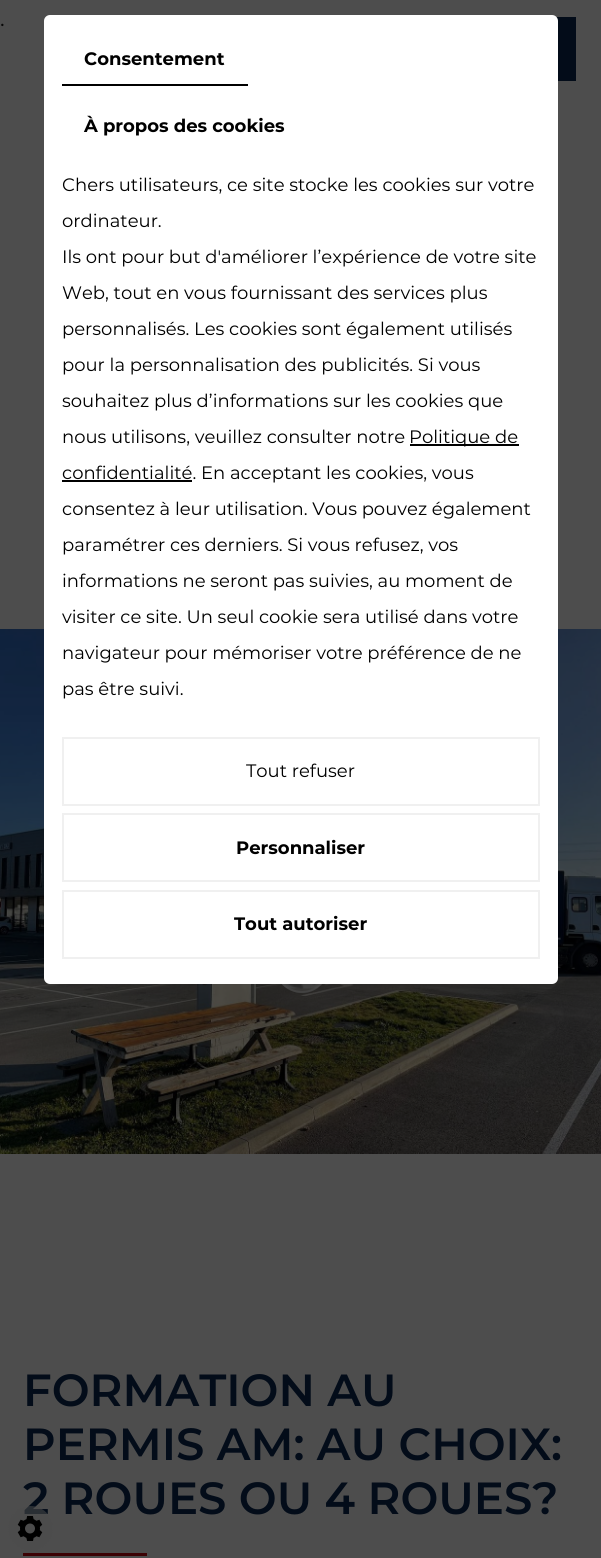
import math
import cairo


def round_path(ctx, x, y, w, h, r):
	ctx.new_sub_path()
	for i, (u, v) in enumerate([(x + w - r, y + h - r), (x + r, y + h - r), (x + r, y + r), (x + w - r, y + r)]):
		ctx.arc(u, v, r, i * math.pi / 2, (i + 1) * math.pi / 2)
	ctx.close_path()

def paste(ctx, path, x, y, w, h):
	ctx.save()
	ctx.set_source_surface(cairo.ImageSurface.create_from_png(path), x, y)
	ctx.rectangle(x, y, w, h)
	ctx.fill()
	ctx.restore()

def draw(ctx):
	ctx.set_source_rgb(0.302, 0.302, 0.302)
	ctx.paint()
	ctx.select_font_face('Montserrat')
	ctx.set_font_size(22)
	ctx.set_source_rgb(0.031, 0.031, 0.031)
	ctx.move_to(0, 26)
	ctx.show_text('.')
	ctx.set_source_rgb(0.012, 0.047, 0.098)
	ctx.rectangle(556, 17, 20, 64)
	ctx.fill()
	paste(ctx, 'media/1.png', 0, 629, 601, 525)
	ctx.set_source_rgba(0.302, 0.302, 0.302, 0.43)
	ctx.arc(302, 966, 27, 0, 2 * math.pi)
	ctx.fill()
	paste(ctx, 'media/2.png', 281, 984, 41, 5)
	ctx.arc(302, 966, 26, 0, 2 * math.pi)
	ctx.set_source_rgba(0.302, 0.302, 0.302, 0.48)
	ctx.stroke()
	ctx.set_source_rgb(1, 1, 1)
	round_path(ctx, 44, 15, 514, 969, 6)
	ctx.fill()
	ctx.set_source_rgb(0, 0, 0)
	ctx.rectangle(62, 84, 186, 2)
	ctx.fill()
	ctx.select_font_face('Montserrat', cairo.FONT_SLANT_NORMAL, cairo.FONT_WEIGHT_BOLD)
	ctx.set_font_size(18)
	ctx.move_to(84, 65)
	ctx.show_text('Consentement')
	ctx.move_to(84, 132)
	ctx.show_text('À propos des cookies')
	ctx.select_font_face('Montserrat')
	for x, y, s in [
		(62, 191, 'Chers utilisateurs, ce site stocke les cookies sur votre'),
		(62, 227, 'ordinateur.'),
		(62, 263, 'Ils ont pour but d\'améliorer l’expérience de votre site'),
		(62, 299, 'Web, tout en vous fournissant des services plus'),
		(62, 335, 'personnalisés. Les cookies sont également utilisés'),
		(62, 371, 'pour la personnalisation des publicités. Si vous'),
		(62, 407, 'souhaitez plus d’informations sur les cookies que'),
		(62, 443, 'nous utilisons, veuillez consulter notre'),
	]:
		ctx.move_to(x, y)
		ctx.show_text(s)
	ctx.rectangle(410, 444, 109, 2)
	ctx.fill()
	ctx.move_to(409, 443)
	ctx.show_text('Politique de')
	ctx.rectangle(62, 480, 130, 2)
	ctx.fill()
	for x, y, s in [
		(62, 479, 'confidentialité. En acceptant les cookies, vous'),
		(62, 515, 'consentez à leur utilisation. Vous pouvez également'),
		(62, 551, 'paramétrer ces derniers. Si vous refusez, vos'),
		(62, 587, 'informations ne seront pas suivies, au moment de'),
		(62, 623, 'visiter ce site. Un seul cookie sera utilisé dans votre'),
		(62, 659, 'navigateur pour mémoriser votre préférence de ne'),
		(62, 695, 'pas être suivi.'),
	]:
		ctx.move_to(x, y)
		ctx.show_text(s)
	ctx.rectangle(63, 738, 476, 67)
	ctx.set_source_rgb(0.941, 0.941, 0.941)
	ctx.stroke()
	ctx.set_source_rgb(0, 0, 0)
	ctx.move_to(246, 777)
	ctx.show_text('Tout refuser')
	ctx.rectangle(63, 814, 476, 67)
	ctx.set_source_rgb(0.941, 0.941, 0.941)
	ctx.stroke()
	ctx.select_font_face('Montserrat', cairo.FONT_SLANT_NORMAL, cairo.FONT_WEIGHT_BOLD)
	ctx.set_source_rgb(0, 0, 0)
	ctx.move_to(236, 854)
	ctx.show_text('Personnaliser')
	ctx.rectangle(63, 891, 476, 67)
	ctx.set_source_rgb(0.941, 0.941, 0.941)
	ctx.stroke()
	ctx.set_source_rgb(0, 0, 0)
	ctx.move_to(234, 930)
	ctx.show_text('Tout autoriser')
	ctx.select_font_face('Montserrat SemiBold')
	ctx.set_font_size(45)
	ctx.set_source_rgb(0.012, 0.047, 0.098)
	for x, y, s in [
		(23, 1406, 'FORMATION AU'),
		(23, 1460, 'PERMIS AM: AU CHOIX:'),
		(23, 1514, '2 ROUES OU 4 ROUES?'),
	]:
		ctx.move_to(x, y)
		ctx.show_text(s)
	ctx.set_source_rgb(0.239, 0.008, 0.02)
	ctx.rectangle(23, 1553, 124, 3)
	ctx.fill()
	ctx.set_source_rgba(0.302, 0.302, 0.302, 0.54)
	ctx.arc(30.5, 1528.5, 22.5, 0, 2 * math.pi)
	ctx.fill()
	paste(ctx, 'media/3.png', 17, 1516, 26, 25)


surface = cairo.ImageSurface(cairo.FORMAT_RGB24, 601, 1558)
ctx = cairo.Context(surface)
options = cairo.FontOptions()
options.set_hint_metrics(cairo.HINT_METRICS_OFF)
options.set_hint_style(cairo.HINT_STYLE_NONE)
ctx.set_font_options(options)
ctx.set_miter_limit(4)
draw(ctx)
surface.write_to_png('image.png')
